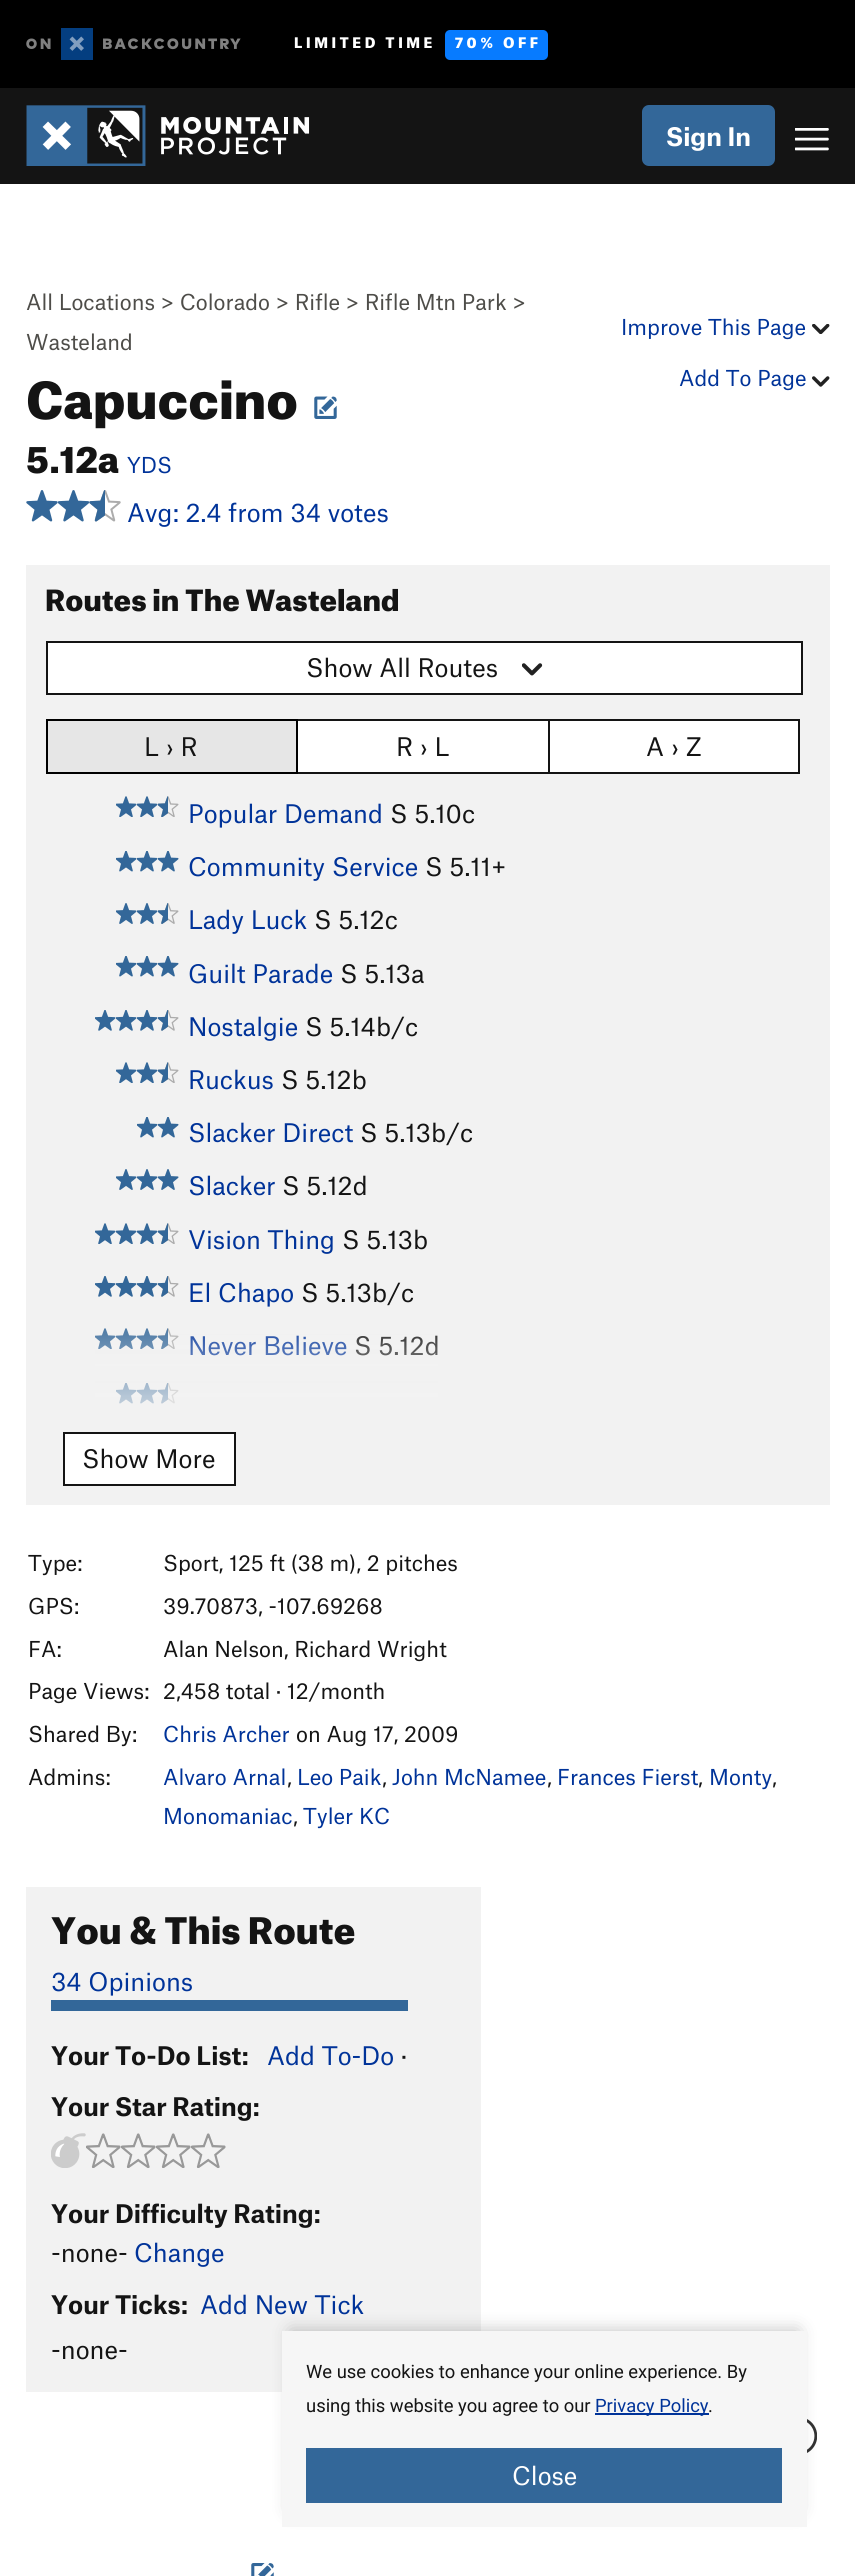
import math
import cairo


def write_spaced(ctx, x, y, s, letter, word):
	ctx.move_to(x, y)
	for ch in s:
		ctx.show_text(ch)
		ctx.rel_move_to(letter + word * (ch == ' '), 0)

def round_path(ctx, x, y, w, h, r):
	ctx.new_sub_path()
	for i, (u, v) in enumerate([(x + w - r, y + h - r), (x + r, y + h - r), (x + r, y + r), (x + w - r, y + r)]):
		ctx.arc(u, v, r, i * math.pi / 2, (i + 1) * math.pi / 2)
	ctx.close_path()

def blur_box(ctx, x, y, w, h, r, blur, alpha):
	ctx.push_group_with_content(cairo.CONTENT_ALPHA)
	ctx.set_operator(cairo.OPERATOR_SOURCE)
	for i in range(15, -16, -2):
		e = blur * i / 6
		if min(w, h) + 2 * e > 0:
			ctx.set_source_rgba(0, 0, 0, alpha * math.erfc((i - 1) / 8.5) / 2)
			round_path(ctx, x - e, y - e, w + 2 * e, h + 2 * e, max(0, min(r + e + blur * .6, min(w, h) / 2 + e)))
			ctx.fill()
	ctx.mask(ctx.pop_group())

def paste(ctx, path, x, y, w, h):
	ctx.save()
	ctx.set_source_surface(cairo.ImageSurface.create_from_png(path), x, y)
	ctx.rectangle(x, y, w, h)
	ctx.fill()
	ctx.restore()

def draw(ctx):
	ctx.set_source_rgb(1, 1, 1)
	ctx.paint()
	ctx.set_source_rgb(0.082, 0.082, 0.082)
	ctx.rectangle(0, 88, 855, 96)
	ctx.fill()
	ctx.set_source_rgb(0, 0, 0)
	ctx.rectangle(0, 0, 855, 88)
	ctx.fill()
	paste(ctx, 'media/1.png', 26, 28, 215, 32)
	ctx.select_font_face('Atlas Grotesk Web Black')
	ctx.set_font_size(14)
	ctx.set_source_rgb(1, 1, 1)
	write_spaced(ctx, 294, 48, 'LIMITED TIME', 3.5, 0)
	ctx.set_source_rgb(0.031, 0.482, 1)
	round_path(ctx, 445, 30, 103, 30, 5)
	ctx.fill()
	ctx.set_source_rgb(1, 1, 1)
	write_spaced(ctx, 455, 48, '70% OFF', 3.5, 0)
	paste(ctx, 'media/2.png', 26, 105, 284, 61)
	ctx.set_source_rgb(0.2, 0.404, 0.6)
	round_path(ctx, 642, 105, 133, 61, 7)
	ctx.fill()
	ctx.select_font_face('Atlas Grotesk Web', cairo.FONT_SLANT_NORMAL, cairo.FONT_WEIGHT_BOLD)
	ctx.set_font_size(24.5)
	ctx.set_source_rgb(1, 1, 1)
	ctx.move_to(666, 146)
	ctx.show_text('Sign In')
	paste(ctx, 'media/3.png', 795, 128, 34, 23)
	ctx.select_font_face('Atlas Grotesk Web')
	ctx.set_font_size(21)
	ctx.set_source_rgb(0.306, 0.302, 0.286)
	ctx.move_to(26, 310)
	ctx.show_text('All Locations > Colorado > Rifle > Rifle Mtn Park >')
	ctx.move_to(26, 350)
	ctx.show_text('Wasteland')
	ctx.set_source_rgb(0, 0.2, 0.6)
	ctx.move_to(621, 335)
	ctx.show_text('Improve This Page')
	paste(ctx, 'media/4.png', 812, 324, 18, 10)
	ctx.move_to(679, 386)
	ctx.show_text('Add To Page')
	paste(ctx, 'media/5.png', 812, 376, 18, 11)
	ctx.select_font_face('Atlas Grotesk Web Black')
	ctx.set_font_size(49)
	ctx.set_source_rgb(0.082, 0.082, 0.082)
	ctx.move_to(26, 419)
	ctx.show_text('Capuccino')
	paste(ctx, 'media/6.png', 314, 396, 23, 23)
	ctx.set_font_size(35)
	ctx.move_to(26, 473)
	ctx.show_text('5.12a')
	ctx.select_font_face('Atlas Grotesk Web')
	ctx.set_font_size(21)
	ctx.set_source_rgb(0, 0.2, 0.6)
	ctx.move_to(127, 473)
	ctx.show_text('YDS')
	paste(ctx, 'media/7.png', 26, 490, 32, 32)
	paste(ctx, 'media/8.png', 58, 490, 31, 32)
	paste(ctx, 'media/9.png', 89, 490, 32, 32)
	ctx.set_font_size(24.5)
	ctx.move_to(127, 522)
	ctx.show_text('Avg: 2.4 from 34 votes')
	ctx.set_source_rgb(0.949, 0.949, 0.949)
	ctx.rectangle(26, 565, 804, 940)
	ctx.fill()
	ctx.select_font_face('Atlas Grotesk Web Black')
	ctx.set_font_size(28)
	ctx.set_source_rgb(0.082, 0.082, 0.082)
	ctx.move_to(45, 611)
	ctx.show_text('Routes in The Wasteland')
	ctx.set_source_rgb(1, 1, 1)
	ctx.rectangle(47, 642, 755, 52)
	ctx.fill_preserve()
	ctx.set_source_rgb(0.082, 0.082, 0.082)
	ctx.stroke()
	ctx.select_font_face('Atlas Grotesk Web')
	ctx.set_font_size(24.5)
	ctx.move_to(306, 677)
	ctx.show_text('Show All Routes')
	paste(ctx, 'media/10.png', 522, 663, 21, 13)
	ctx.set_source_rgb(1, 1, 1)
	ctx.rectangle(297, 720, 252, 53)
	ctx.fill_preserve()
	ctx.set_source_rgb(0.082, 0.082, 0.082)
	ctx.stroke()
	ctx.set_source_rgb(0.902, 0.902, 0.902)
	ctx.rectangle(47, 720, 250, 53)
	ctx.fill_preserve()
	ctx.set_source_rgb(0, 0, 0)
	ctx.stroke()
	ctx.set_source_rgb(0.082, 0.082, 0.082)
	ctx.move_to(144, 756)
	ctx.show_text('L › R')
	ctx.move_to(396, 756)
	ctx.show_text('R › L')
	ctx.set_source_rgb(1, 1, 1)
	ctx.rectangle(549, 720, 250, 53)
	ctx.fill_preserve()
	ctx.set_source_rgb(0.082, 0.082, 0.082)
	ctx.stroke()
	ctx.move_to(646, 756)
	ctx.show_text('A › Z')
	paste(ctx, 'media/11.png', 116, 796, 21, 21)
	paste(ctx, 'media/11.png', 137, 796, 21, 21)
	paste(ctx, 'media/12.png', 158, 796, 21, 21)
	ctx.set_source_rgb(0, 0.2, 0.6)
	ctx.move_to(188, 823)
	ctx.show_text('Popular Demand')
	ctx.set_source_rgb(0.082, 0.082, 0.082)
	ctx.move_to(390, 823)
	ctx.show_text('S 5.10c')
	paste(ctx, 'media/13.png', 116, 851, 21, 21)
	paste(ctx, 'media/13.png', 137, 851, 21, 21)
	paste(ctx, 'media/13.png', 158, 851, 21, 21)
	ctx.set_source_rgb(0, 0.2, 0.6)
	ctx.move_to(188, 876)
	ctx.show_text('Community Service')
	ctx.set_source_rgb(0.082, 0.082, 0.082)
	ctx.move_to(425, 876)
	ctx.show_text('S 5.11+')
	paste(ctx, 'media/14.png', 116, 903, 21, 21)
	paste(ctx, 'media/14.png', 137, 903, 21, 21)
	paste(ctx, 'media/15.png', 158, 903, 21, 21)
	ctx.set_source_rgb(0, 0.2, 0.6)
	ctx.move_to(188, 929)
	ctx.show_text('Lady Luck')
	ctx.set_source_rgb(0.082, 0.082, 0.082)
	ctx.move_to(314, 929)
	ctx.show_text('S 5.12c')
	paste(ctx, 'media/13.png', 116, 956, 21, 21)
	paste(ctx, 'media/13.png', 137, 956, 21, 21)
	paste(ctx, 'media/13.png', 158, 956, 21, 21)
	ctx.set_source_rgb(0, 0.2, 0.6)
	ctx.move_to(188, 983)
	ctx.show_text('Guilt Parade')
	ctx.set_source_rgb(0.082, 0.082, 0.082)
	ctx.move_to(340, 983)
	ctx.show_text('S 5.13a')
	paste(ctx, 'media/16.png', 95, 1010, 21, 21)
	paste(ctx, 'media/16.png', 116, 1010, 21, 21)
	paste(ctx, 'media/16.png', 137, 1010, 21, 21)
	paste(ctx, 'media/17.png', 158, 1010, 21, 21)
	ctx.set_source_rgb(0, 0.2, 0.6)
	ctx.move_to(188, 1036)
	ctx.show_text('Nostalgie')
	ctx.set_source_rgb(0.082, 0.082, 0.082)
	ctx.move_to(305, 1036)
	ctx.show_text('S 5.14b/c')
	paste(ctx, 'media/11.png', 116, 1062, 21, 21)
	paste(ctx, 'media/11.png', 137, 1062, 21, 21)
	paste(ctx, 'media/12.png', 158, 1062, 21, 21)
	ctx.set_source_rgb(0, 0.2, 0.6)
	ctx.move_to(188, 1089)
	ctx.show_text('Ruckus')
	ctx.set_source_rgb(0.082, 0.082, 0.082)
	ctx.move_to(281, 1089)
	ctx.show_text('S 5.12b')
	paste(ctx, 'media/13.png', 137, 1117, 21, 21)
	paste(ctx, 'media/13.png', 158, 1117, 21, 21)
	ctx.set_source_rgb(0, 0.2, 0.6)
	ctx.move_to(188, 1142)
	ctx.show_text('Slacker Direct')
	ctx.set_source_rgb(0.082, 0.082, 0.082)
	ctx.move_to(360, 1142)
	ctx.show_text('S 5.13b/c')
	paste(ctx, 'media/14.png', 116, 1169, 21, 21)
	paste(ctx, 'media/14.png', 137, 1169, 21, 21)
	paste(ctx, 'media/14.png', 158, 1169, 21, 21)
	ctx.set_source_rgb(0, 0.2, 0.6)
	ctx.move_to(188, 1195)
	ctx.show_text('Slacker')
	ctx.set_source_rgb(0.082, 0.082, 0.082)
	ctx.move_to(282, 1195)
	ctx.show_text('S 5.12d')
	paste(ctx, 'media/11.png', 95, 1223, 21, 21)
	paste(ctx, 'media/11.png', 116, 1223, 21, 21)
	paste(ctx, 'media/11.png', 137, 1223, 21, 21)
	paste(ctx, 'media/12.png', 158, 1223, 21, 21)
	ctx.set_source_rgb(0, 0.2, 0.6)
	ctx.move_to(188, 1249)
	ctx.show_text('Vision Thing')
	ctx.set_source_rgb(0.082, 0.082, 0.082)
	ctx.move_to(342, 1249)
	ctx.show_text('S 5.13b')
	paste(ctx, 'media/16.png', 95, 1276, 21, 21)
	paste(ctx, 'media/16.png', 116, 1276, 21, 21)
	paste(ctx, 'media/16.png', 137, 1276, 21, 21)
	paste(ctx, 'media/17.png', 158, 1276, 21, 21)
	ctx.set_source_rgb(0, 0.2, 0.6)
	ctx.move_to(188, 1302)
	ctx.show_text('El Chapo')
	ctx.set_source_rgb(0.082, 0.082, 0.082)
	ctx.move_to(301, 1302)
	ctx.show_text('S 5.13b/c')
	paste(ctx, 'media/11.png', 95, 1328, 21, 21)
	paste(ctx, 'media/11.png', 116, 1328, 21, 21)
	paste(ctx, 'media/11.png', 137, 1328, 21, 21)
	paste(ctx, 'media/12.png', 158, 1328, 21, 21)
	ctx.set_source_rgb(0, 0.2, 0.6)
	ctx.move_to(188, 1355)
	ctx.show_text('Never Believe')
	ctx.set_source_rgb(0.082, 0.082, 0.082)
	ctx.move_to(354, 1355)
	ctx.show_text('S 5.12d')
	paste(ctx, 'media/13.png', 116, 1383, 21, 21)
	paste(ctx, 'media/13.png', 137, 1383, 21, 21)
	paste(ctx, 'media/18.png', 158, 1383, 21, 21)
	gradient = cairo.LinearGradient(429, 1311, 429, 1486)
	gradient.add_color_stop_rgba(0, 0.949, 0.949, 0.949, 0)
	gradient.add_color_stop_rgba(0.5, 0.949, 0.949, 0.949, 0.7)
	gradient.add_color_stop_rgba(1, 0.949, 0.949, 0.949, 1)
	ctx.set_source(gradient)
	ctx.rectangle(95, 1328, 343, 76)
	ctx.fill()
	ctx.set_source_rgb(1, 1, 1)
	ctx.rectangle(64, 1433, 171, 52)
	ctx.fill_preserve()
	ctx.set_source_rgb(0.082, 0.082, 0.082)
	ctx.stroke()
	ctx.move_to(82, 1468)
	ctx.show_text('Show More')
	ctx.set_font_size(21)
	for x, y, s in [
		(28, 1571, 'Type:'),
		(163, 1571, 'Sport, 125 ft (38 m), 2 pitches'),
		(28, 1614, 'GPS:'),
		(163, 1614, '39.70873, -107.69268'),
		(28, 1657, 'FA:'),
		(163, 1657, 'Alan Nelson, Richard Wright'),
		(28, 1699, 'Page Views:'),
		(163, 1699, '2,458 total · 12/month'),
		(28, 1742, 'Shared By:'),
	]:
		ctx.move_to(x, y)
		ctx.show_text(s)
	ctx.set_source_rgb(0, 0.2, 0.6)
	ctx.move_to(163, 1742)
	ctx.show_text('Chris Archer')
	ctx.set_source_rgb(0.082, 0.082, 0.082)
	ctx.move_to(296, 1742)
	ctx.show_text('on Aug 17, 2009')
	ctx.move_to(28, 1785)
	ctx.show_text('Admins:')
	ctx.set_source_rgb(0, 0.2, 0.6)
	ctx.move_to(163, 1785)
	ctx.show_text('Alvaro Arnal')
	ctx.set_source_rgb(0.082, 0.082, 0.082)
	ctx.move_to(287, 1785)
	ctx.show_text(',')
	ctx.set_source_rgb(0, 0.2, 0.6)
	ctx.move_to(297, 1785)
	ctx.show_text('Leo Paik')
	ctx.set_source_rgb(0.082, 0.082, 0.082)
	ctx.move_to(382, 1785)
	ctx.show_text(',')
	ctx.set_source_rgb(0, 0.2, 0.6)
	ctx.move_to(392, 1785)
	ctx.show_text('John McNamee')
	ctx.set_source_rgb(0.082, 0.082, 0.082)
	ctx.move_to(547, 1785)
	ctx.show_text(',')
	ctx.set_source_rgb(0, 0.2, 0.6)
	ctx.move_to(557, 1785)
	ctx.show_text('Frances Fierst')
	ctx.set_source_rgb(0.082, 0.082, 0.082)
	ctx.move_to(698, 1785)
	ctx.show_text(',')
	ctx.set_source_rgb(0, 0.2, 0.6)
	ctx.move_to(709, 1785)
	ctx.show_text('Monty')
	ctx.set_source_rgb(0.082, 0.082, 0.082)
	ctx.move_to(772, 1785)
	ctx.show_text(',')
	ctx.set_source_rgb(0, 0.2, 0.6)
	ctx.move_to(163, 1824)
	ctx.show_text('Monomaniac')
	ctx.set_source_rgb(0.082, 0.082, 0.082)
	ctx.move_to(293, 1824)
	ctx.show_text(',')
	ctx.set_source_rgb(0, 0.2, 0.6)
	ctx.move_to(303, 1824)
	ctx.show_text('Tyler KC')
	ctx.set_source_rgb(0.949, 0.949, 0.949)
	ctx.rectangle(26, 1887, 455, 505)
	ctx.fill()
	ctx.set_source_rgb(0.2, 0.404, 0.6)
	ctx.rectangle(51, 2000, 357, 11)
	ctx.fill()
	ctx.select_font_face('Atlas Grotesk Web Black')
	ctx.set_font_size(35)
	ctx.set_source_rgb(0.082, 0.082, 0.082)
	ctx.move_to(51, 1944)
	ctx.show_text('You & This Route')
	ctx.select_font_face('Atlas Grotesk Web')
	ctx.set_font_size(24.5)
	ctx.set_source_rgb(0, 0.2, 0.6)
	ctx.move_to(51, 1991)
	ctx.show_text('34 Opinions')
	ctx.select_font_face('Atlas Grotesk Web', cairo.FONT_SLANT_NORMAL, cairo.FONT_WEIGHT_BOLD)
	ctx.set_source_rgb(0.082, 0.082, 0.082)
	ctx.move_to(51, 2065)
	ctx.show_text('Your To-Do List:')
	ctx.select_font_face('Atlas Grotesk Web')
	ctx.set_source_rgb(0, 0.2, 0.6)
	ctx.move_to(267, 2065)
	ctx.show_text('Add To-Do')
	ctx.set_source_rgb(0.082, 0.082, 0.082)
	ctx.move_to(401, 2065)
	ctx.show_text('·')
	ctx.select_font_face('Atlas Grotesk Web', cairo.FONT_SLANT_NORMAL, cairo.FONT_WEIGHT_BOLD)
	ctx.move_to(51, 2116)
	ctx.show_text('Your Star Rating:')
	paste(ctx, 'media/19.png', 51, 2133, 35, 35)
	paste(ctx, 'media/20.png', 86, 2133, 35, 35)
	paste(ctx, 'media/20.png', 121, 2133, 35, 35)
	paste(ctx, 'media/20.png', 156, 2133, 35, 35)
	paste(ctx, 'media/20.png', 191, 2133, 35, 35)
	ctx.move_to(51, 2223)
	ctx.show_text('Your Difficulty Rating:')
	ctx.select_font_face('Atlas Grotesk Web')
	ctx.move_to(51, 2262)
	ctx.show_text('-none-')
	ctx.set_source_rgb(0, 0.2, 0.6)
	ctx.move_to(134, 2262)
	ctx.show_text('Change')
	ctx.select_font_face('Atlas Grotesk Web', cairo.FONT_SLANT_NORMAL, cairo.FONT_WEIGHT_BOLD)
	ctx.set_source_rgb(0.082, 0.082, 0.082)
	ctx.move_to(51, 2314)
	ctx.show_text('Your Ticks:')
	ctx.select_font_face('Atlas Grotesk Web')
	ctx.set_source_rgb(0, 0.2, 0.6)
	ctx.move_to(200, 2314)
	ctx.show_text('Add New Tick')
	ctx.set_source_rgb(0.082, 0.082, 0.082)
	ctx.move_to(51, 2359)
	ctx.show_text('-none-')
	paste(ctx, 'media/21.png', 807, 2419, 10, 34)
	paste(ctx, 'media/22.png', 251, 2563, 23, 13)
	ctx.set_source_rgb(0, 0, 0)
	blur_box(ctx, 291, 2331, 507, 179, 0, 9, 0.25)
	ctx.set_source_rgb(0.961, 0.961, 0.961)
	ctx.rectangle(282, 2331, 525, 196)
	ctx.fill()
	ctx.select_font_face('Roboto')
	ctx.set_font_size(18.4)
	ctx.set_source_rgb(0.082, 0.082, 0.082)
	ctx.move_to(306, 2378)
	ctx.show_text('We use cookies to enhance your online experience. By')
	ctx.move_to(306, 2412)
	ctx.show_text('using this website you agree to our')
	ctx.set_source_rgb(0, 0.2, 0.6)
	ctx.rectangle(595, 2413, 114, 2)
	ctx.fill()
	ctx.move_to(595, 2412)
	ctx.show_text('Privacy Policy')
	ctx.set_source_rgb(0.082, 0.082, 0.082)
	ctx.move_to(708, 2412)
	ctx.show_text('.')
	ctx.set_source_rgb(0.2, 0.404, 0.6)
	ctx.rectangle(306, 2448, 476, 55)
	ctx.fill()
	ctx.select_font_face('Atlas Grotesk Web')
	ctx.set_font_size(24.5)
	ctx.set_source_rgb(1, 1, 1)
	ctx.move_to(512, 2485)
	ctx.show_text('Close')


surface = cairo.ImageSurface(cairo.FORMAT_RGB24, 855, 2576)
ctx = cairo.Context(surface)
options = cairo.FontOptions()
options.set_hint_metrics(cairo.HINT_METRICS_OFF)
options.set_hint_style(cairo.HINT_STYLE_NONE)
ctx.set_font_options(options)
ctx.set_miter_limit(4)
draw(ctx)
surface.write_to_png('image.png')
